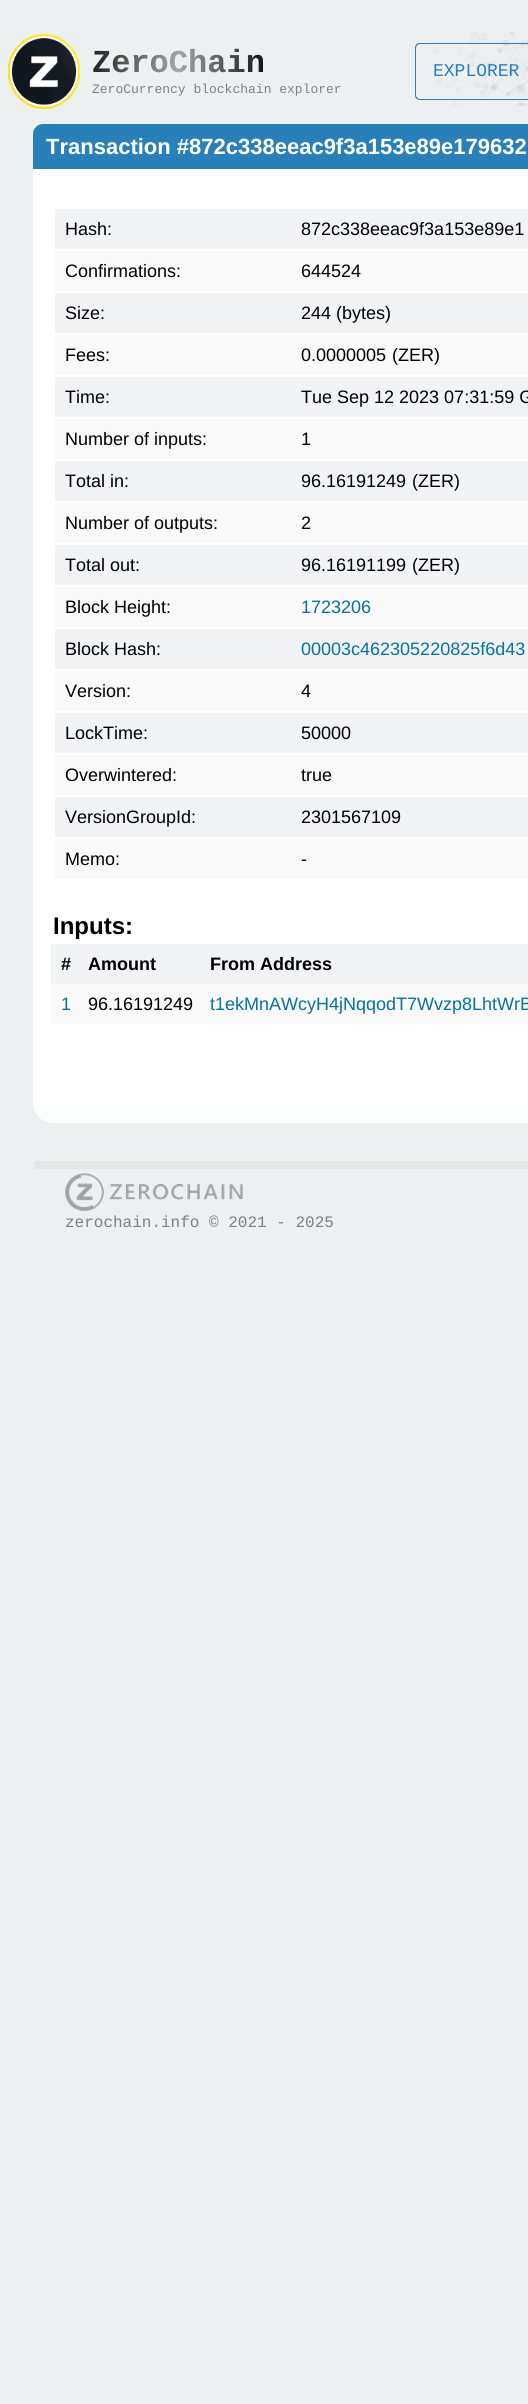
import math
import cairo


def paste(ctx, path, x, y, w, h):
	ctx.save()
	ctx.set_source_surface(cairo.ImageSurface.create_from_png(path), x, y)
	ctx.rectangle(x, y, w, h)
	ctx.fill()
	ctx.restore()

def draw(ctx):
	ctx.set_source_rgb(0.925, 0.941, 0.945)
	ctx.paint()
	paste(ctx, 'media/1.png', 432, 31, 96, 75)
	paste(ctx, 'media/2.png', 7, 33, 74, 76)
	ctx.select_font_face('Liberation Mono', cairo.FONT_SLANT_NORMAL, cairo.FONT_WEIGHT_BOLD)
	ctx.set_font_size(32)
	gradient = cairo.LinearGradient(92, 45, 265, 45)
	gradient.add_color_stop_rgba(0, 0.133, 0.133, 0.133, 1)
	gradient.add_color_stop_rgba(0.5, 0.651, 0.651, 0.651, 1)
	gradient.add_color_stop_rgba(1, 0.067, 0.067, 0.067, 1)
	ctx.set_source(gradient)
	ctx.move_to(92, 72)
	ctx.show_text('ZeroChain')
	ctx.select_font_face('Liberation Mono')
	ctx.set_font_size(13)
	ctx.set_source_rgb(0.498, 0.498, 0.498)
	ctx.move_to(92, 93)
	ctx.show_text('ZeroCurrency blockchain explorer')
	ctx.set_source_rgb(0.161, 0.502, 0.725)
	ctx.set_fill_rule(cairo.FILL_RULE_EVEN_ODD)
	ctx.new_path()
	ctx.move_to(420, 43)
	ctx.line_to(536, 43)
	ctx.line_to(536, 100)
	ctx.line_to(420, 100)
	ctx.curve_to(417, 100, 415, 98, 415, 95)
	ctx.line_to(415, 48)
	ctx.curve_to(415, 45, 417, 43, 420, 43)
	ctx.close_path()
	ctx.move_to(420, 44)
	ctx.line_to(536, 44)
	ctx.line_to(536, 99)
	ctx.line_to(420, 99)
	ctx.curve_to(418, 99, 416, 97, 416, 95)
	ctx.line_to(416, 48)
	ctx.curve_to(416, 46, 418, 44, 420, 44)
	ctx.close_path()
	ctx.fill()
	ctx.set_font_size(18)
	ctx.move_to(433, 76)
	ctx.show_text('EXPLORER')
	ctx.new_path()
	ctx.move_to(43, 124)
	ctx.line_to(528, 124)
	ctx.curve_to(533.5, 124, 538, 128.5, 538, 134)
	ctx.line_to(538, 169)
	ctx.line_to(33, 169)
	ctx.line_to(33, 134)
	ctx.curve_to(33, 128.5, 37.5, 124, 43, 124)
	ctx.close_path()
	ctx.fill()
	ctx.select_font_face('Liberation Sans', cairo.FONT_SLANT_NORMAL, cairo.FONT_WEIGHT_BOLD)
	ctx.set_font_size(22)
	ctx.set_source_rgb(1, 1, 1)
	ctx.move_to(46, 154)
	ctx.show_text('Transaction #872c338eeac9f3a153e89e179632')
	ctx.rectangle(33, 169, 495, 934)
	ctx.fill()
	ctx.set_source_rgb(0.949, 0.953, 0.957)
	ctx.rectangle(55, 209, 473, 40)
	ctx.fill()
	ctx.select_font_face('Liberation Sans')
	ctx.set_font_size(18)
	ctx.set_source_rgb(0, 0, 0)
	ctx.move_to(65, 235)
	ctx.show_text('Hash:')
	ctx.move_to(301, 235)
	ctx.show_text('872c338eeac9f3a153e89e1')
	ctx.set_source_rgb(0.976, 0.976, 0.976)
	ctx.rectangle(55, 251, 473, 40)
	ctx.fill()
	ctx.set_source_rgb(0, 0, 0)
	ctx.move_to(65, 277)
	ctx.show_text('Confirmations:')
	ctx.move_to(301, 277)
	ctx.show_text('644524')
	ctx.set_source_rgb(0.949, 0.953, 0.957)
	ctx.rectangle(55, 293, 473, 40)
	ctx.fill()
	ctx.set_source_rgb(0, 0, 0)
	ctx.move_to(65, 319)
	ctx.show_text('Size:')
	ctx.move_to(301, 319)
	ctx.show_text('244 (bytes)')
	ctx.set_source_rgb(0.976, 0.976, 0.976)
	ctx.rectangle(55, 335, 473, 40)
	ctx.fill()
	ctx.set_source_rgb(0, 0, 0)
	for x, y, s in [
		(65, 361, 'Fees:'),
		(301, 361, '0.0000005'),
		(392, 361, '(ZER)'),
	]:
		ctx.move_to(x, y)
		ctx.show_text(s)
	ctx.set_source_rgb(0.949, 0.953, 0.957)
	ctx.rectangle(55, 377, 473, 40)
	ctx.fill()
	ctx.set_source_rgb(0, 0, 0)
	ctx.move_to(65, 403)
	ctx.show_text('Time:')
	ctx.move_to(301, 403)
	ctx.show_text('Tue Sep 12 2023 07:31:59 G')
	ctx.set_source_rgb(0.976, 0.976, 0.976)
	ctx.rectangle(55, 419, 473, 40)
	ctx.fill()
	ctx.set_source_rgb(0, 0, 0)
	ctx.move_to(65, 445)
	ctx.show_text('Number of inputs:')
	ctx.move_to(301, 445)
	ctx.show_text('1')
	ctx.set_source_rgb(0.949, 0.953, 0.957)
	ctx.rectangle(55, 461, 473, 40)
	ctx.fill()
	ctx.set_source_rgb(0, 0, 0)
	for x, y, s in [
		(65, 487, 'Total in:'),
		(301, 487, '96.16191249'),
		(412, 487, '(ZER)'),
	]:
		ctx.move_to(x, y)
		ctx.show_text(s)
	ctx.set_source_rgb(0.976, 0.976, 0.976)
	ctx.rectangle(55, 503, 473, 40)
	ctx.fill()
	ctx.set_source_rgb(0, 0, 0)
	ctx.move_to(65, 529)
	ctx.show_text('Number of outputs:')
	ctx.move_to(301, 529)
	ctx.show_text('2')
	ctx.set_source_rgb(0.949, 0.953, 0.957)
	ctx.rectangle(55, 545, 473, 40)
	ctx.fill()
	ctx.set_source_rgb(0, 0, 0)
	for x, y, s in [
		(65, 571, 'Total out:'),
		(301, 571, '96.16191199'),
		(412, 571, '(ZER)'),
	]:
		ctx.move_to(x, y)
		ctx.show_text(s)
	ctx.set_source_rgb(0.976, 0.976, 0.976)
	ctx.rectangle(55, 587, 473, 40)
	ctx.fill()
	ctx.set_source_rgb(0, 0, 0)
	ctx.move_to(65, 613)
	ctx.show_text('Block Height:')
	ctx.set_source_rgb(0.027, 0.447, 0.616)
	ctx.move_to(301, 613)
	ctx.show_text('1723206')
	ctx.set_source_rgb(0.949, 0.953, 0.957)
	ctx.rectangle(55, 629, 473, 40)
	ctx.fill()
	ctx.set_source_rgb(0, 0, 0)
	ctx.move_to(65, 655)
	ctx.show_text('Block Hash:')
	ctx.set_source_rgb(0.027, 0.447, 0.616)
	ctx.move_to(301, 655)
	ctx.show_text('00003c462305220825f6d43')
	ctx.set_source_rgb(0.976, 0.976, 0.976)
	ctx.rectangle(55, 671, 473, 40)
	ctx.fill()
	ctx.set_source_rgb(0, 0, 0)
	ctx.move_to(65, 697)
	ctx.show_text('Version:')
	ctx.move_to(301, 697)
	ctx.show_text('4')
	ctx.set_source_rgb(0.949, 0.953, 0.957)
	ctx.rectangle(55, 713, 473, 40)
	ctx.fill()
	ctx.set_source_rgb(0, 0, 0)
	ctx.move_to(65, 739)
	ctx.show_text('LockTime:')
	ctx.move_to(301, 739)
	ctx.show_text('50000')
	ctx.set_source_rgb(0.976, 0.976, 0.976)
	ctx.rectangle(55, 755, 473, 40)
	ctx.fill()
	ctx.set_source_rgb(0, 0, 0)
	ctx.move_to(65, 781)
	ctx.show_text('Overwintered:')
	ctx.move_to(301, 781)
	ctx.show_text('true')
	ctx.set_source_rgb(0.949, 0.953, 0.957)
	ctx.rectangle(55, 797, 473, 40)
	ctx.fill()
	ctx.set_source_rgb(0, 0, 0)
	ctx.move_to(65, 823)
	ctx.show_text('VersionGroupId:')
	ctx.move_to(301, 823)
	ctx.show_text('2301567109')
	ctx.set_source_rgb(0.976, 0.976, 0.976)
	ctx.rectangle(55, 839, 473, 40)
	ctx.fill()
	ctx.set_source_rgb(0, 0, 0)
	ctx.move_to(65, 865)
	ctx.show_text('Memo:')
	ctx.move_to(301, 865)
	ctx.show_text('-')
	ctx.select_font_face('Liberation Sans', cairo.FONT_SLANT_NORMAL, cairo.FONT_WEIGHT_BOLD)
	ctx.set_font_size(24)
	ctx.move_to(53, 934)
	ctx.show_text('Inputs:')
	ctx.set_source_rgb(0.949, 0.953, 0.957)
	ctx.rectangle(51, 944, 477, 40)
	ctx.fill()
	ctx.set_font_size(18)
	ctx.set_source_rgb(0, 0, 0)
	for x, y, s in [
		(61, 970, '#'),
		(88, 970, 'Amount'),
		(210, 970, 'From Address'),
	]:
		ctx.move_to(x, y)
		ctx.show_text(s)
	ctx.set_source_rgb(0.976, 0.976, 0.976)
	ctx.rectangle(51, 984, 477, 40)
	ctx.fill()
	ctx.select_font_face('Liberation Sans')
	ctx.set_source_rgb(0.027, 0.447, 0.616)
	ctx.move_to(61, 1010)
	ctx.show_text('1')
	ctx.set_source_rgb(0, 0, 0)
	ctx.move_to(88, 1010)
	ctx.show_text('96.16191249')
	ctx.set_source_rgb(0.027, 0.447, 0.616)
	ctx.move_to(210, 1010)
	ctx.show_text('t1ekMnAWcyH4jNqqodT7Wvzp8LhtWrB')
	ctx.set_source_rgb(0.988, 0.992, 0.992)
	ctx.new_path()
	ctx.move_to(33, 1103)
	ctx.line_to(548, 1103)
	ctx.curve_to(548, 1114, 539, 1123, 528, 1123)
	ctx.line_to(53, 1123)
	ctx.curve_to(42, 1123, 33, 1114, 33, 1103)
	ctx.close_path()
	ctx.fill()
	ctx.set_source_rgb(0.898, 0.898, 0.898)
	ctx.rectangle(35, 1161, 493, 8)
	ctx.fill()
	paste(ctx, 'media/3.png', 64, 1173, 179, 39)
	ctx.select_font_face('Liberation Mono')
	ctx.set_font_size(16)
	ctx.set_source_rgb(0.498, 0.498, 0.498)
	ctx.move_to(65, 1227)
	ctx.show_text('zerochain.info © 2021 - 2025')


surface = cairo.ImageSurface(cairo.FORMAT_RGB24, 528, 2404)
ctx = cairo.Context(surface)
options = cairo.FontOptions()
options.set_hint_metrics(cairo.HINT_METRICS_OFF)
options.set_hint_style(cairo.HINT_STYLE_NONE)
ctx.set_font_options(options)
ctx.set_miter_limit(4)
draw(ctx)
surface.write_to_png('image.png')
